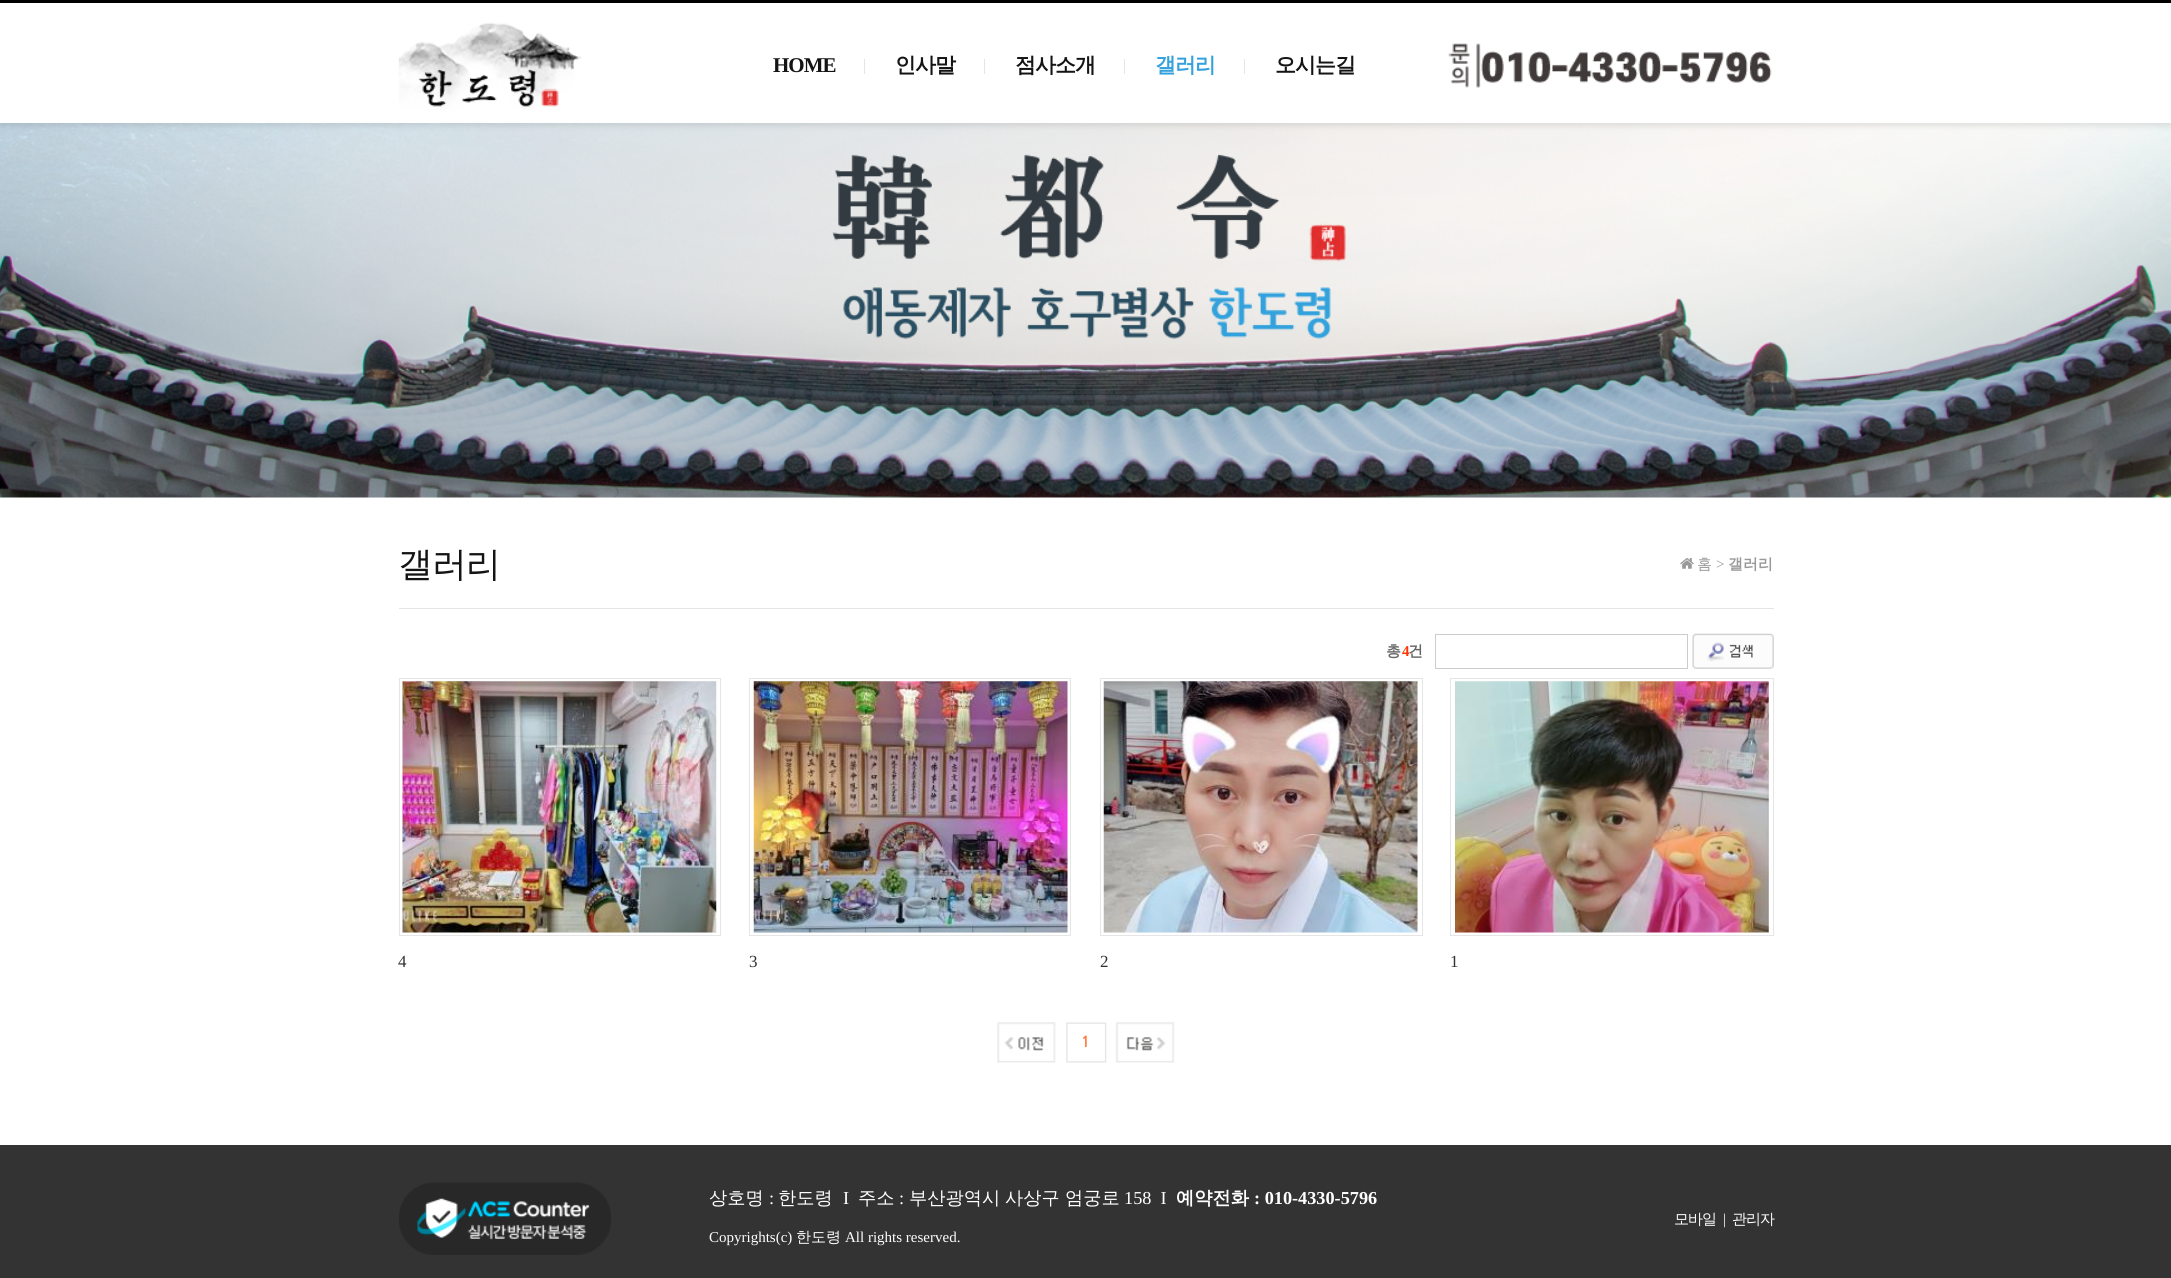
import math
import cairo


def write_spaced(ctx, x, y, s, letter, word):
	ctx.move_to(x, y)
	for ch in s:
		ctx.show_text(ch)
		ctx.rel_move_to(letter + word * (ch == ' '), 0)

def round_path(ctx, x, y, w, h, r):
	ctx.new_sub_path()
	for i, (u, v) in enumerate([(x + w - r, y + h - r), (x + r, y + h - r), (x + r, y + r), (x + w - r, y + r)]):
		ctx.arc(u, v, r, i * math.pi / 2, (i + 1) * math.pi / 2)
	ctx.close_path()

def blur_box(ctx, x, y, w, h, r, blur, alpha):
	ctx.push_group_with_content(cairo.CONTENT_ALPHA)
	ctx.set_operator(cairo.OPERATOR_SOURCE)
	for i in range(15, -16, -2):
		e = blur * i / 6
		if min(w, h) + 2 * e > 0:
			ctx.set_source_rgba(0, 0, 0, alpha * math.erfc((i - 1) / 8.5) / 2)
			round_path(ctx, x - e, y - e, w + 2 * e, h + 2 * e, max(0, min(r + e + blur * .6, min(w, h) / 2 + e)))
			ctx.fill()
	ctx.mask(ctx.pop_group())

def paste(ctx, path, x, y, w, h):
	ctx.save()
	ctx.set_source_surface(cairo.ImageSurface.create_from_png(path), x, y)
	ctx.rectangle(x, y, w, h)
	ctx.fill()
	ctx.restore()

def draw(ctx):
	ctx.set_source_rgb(1, 1, 1)
	ctx.paint()
	paste(ctx, 'media/3.png', 0, 123, 2171, 375)
	ctx.set_source_rgb(0, 0, 0)
	blur_box(ctx, 0, 4, 2171, 122, 0, 3, 0.1)
	ctx.set_source_rgb(0, 0, 0)
	ctx.rectangle(0, 0, 2171, 3)
	ctx.fill()
	ctx.set_source_rgb(1, 1, 1)
	ctx.rectangle(0, 3, 2171, 120)
	ctx.fill()
	paste(ctx, 'media/1.png', 398, 22, 184, 88)
	ctx.select_font_face('Liberation Serif', cairo.FONT_SLANT_NORMAL, cairo.FONT_WEIGHT_BOLD)
	ctx.set_font_size(21)
	ctx.set_source_rgb(0.082, 0.082, 0.082)
	write_spaced(ctx, 773, 72, 'HOME', -1, 0)
	ctx.set_source_rgb(0.898, 0.898, 0.898)
	ctx.rectangle(864, 59, 1, 15)
	ctx.fill()
	ctx.select_font_face('WenQuanYi Zen Hei', cairo.FONT_SLANT_NORMAL, cairo.FONT_WEIGHT_BOLD)
	ctx.set_source_rgb(0.082, 0.082, 0.082)
	write_spaced(ctx, 895, 72, '인사말', -1, 0)
	ctx.set_source_rgb(0.898, 0.898, 0.898)
	ctx.rectangle(984, 59, 1, 15)
	ctx.fill()
	ctx.set_source_rgb(0.082, 0.082, 0.082)
	write_spaced(ctx, 1015, 72, '점사소개', -1, 0)
	ctx.set_source_rgb(0.898, 0.898, 0.898)
	ctx.rectangle(1124, 59, 1, 15)
	ctx.fill()
	ctx.set_source_rgb(0.2, 0.631, 0.863)
	write_spaced(ctx, 1155, 72, '갤러리', -1, 0)
	ctx.set_source_rgb(0.898, 0.898, 0.898)
	ctx.rectangle(1244, 59, 1, 15)
	ctx.fill()
	ctx.set_source_rgb(0.082, 0.082, 0.082)
	write_spaced(ctx, 1275, 72, '오시는길', -1, 0)
	paste(ctx, 'media/2.png', 1448, 43, 324, 45)
	ctx.select_font_face('WenQuanYi Zen Hei Medium')
	ctx.set_font_size(35)
	write_spaced(ctx, 398, 576, '갤러리', -1, 0)
	paste(ctx, 'media/4.png', 1680, 558, 14, 11)
	ctx.set_font_size(15)
	ctx.set_source_rgb(0.6, 0.6, 0.6)
	ctx.move_to(1697, 569)
	ctx.show_text('홈')
	ctx.select_font_face('Liberation Serif')
	ctx.move_to(1716, 569)
	ctx.show_text('>')
	ctx.select_font_face('WenQuanYi Zen Hei', cairo.FONT_SLANT_NORMAL, cairo.FONT_WEIGHT_BOLD)
	ctx.move_to(1728, 569)
	ctx.show_text('갤러리')
	ctx.set_source_rgb(0.898, 0.898, 0.898)
	ctx.rectangle(399, 608, 1375, 1)
	ctx.fill()
	ctx.set_source_rgb(0.4, 0.4, 0.4)
	write_spaced(ctx, 1386, 656, '총', -1, 0)
	ctx.select_font_face('Liberation Serif', cairo.FONT_SLANT_NORMAL, cairo.FONT_WEIGHT_BOLD)
	ctx.set_source_rgb(1, 0.2, 0)
	write_spaced(ctx, 1402, 656, '4', -1, 0)
	ctx.select_font_face('WenQuanYi Zen Hei', cairo.FONT_SLANT_NORMAL, cairo.FONT_WEIGHT_BOLD)
	ctx.set_source_rgb(0.4, 0.4, 0.4)
	write_spaced(ctx, 1408, 656, '건', -1, 0)
	ctx.rectangle(1435.5, 634.5, 252, 34)
	ctx.set_source_rgb(0.8, 0.8, 0.8)
	ctx.set_line_width(1)
	ctx.stroke()
	paste(ctx, 'media/5.png', 1692, 633, 82, 36)
	ctx.rectangle(399.5, 678.5, 321, 257)
	ctx.set_source_rgb(0.898, 0.898, 0.898)
	ctx.stroke()
	paste(ctx, 'media/6.png', 402, 681, 315, 252)
	ctx.select_font_face('Liberation Serif')
	ctx.set_font_size(17)
	ctx.set_source_rgb(0.188, 0.188, 0.188)
	write_spaced(ctx, 398, 967, '4', -1, 0)
	ctx.rectangle(749.5, 678.5, 321, 257)
	ctx.set_source_rgb(0.898, 0.898, 0.898)
	ctx.stroke()
	paste(ctx, 'media/7.png', 753, 681, 315, 252)
	ctx.set_source_rgb(0.188, 0.188, 0.188)
	write_spaced(ctx, 749, 967, '3', -1, 0)
	ctx.rectangle(1100.5, 678.5, 322, 257)
	ctx.set_source_rgb(0.898, 0.898, 0.898)
	ctx.stroke()
	paste(ctx, 'media/8.png', 1103, 681, 315, 252)
	ctx.set_source_rgb(0.188, 0.188, 0.188)
	write_spaced(ctx, 1100, 967, '2', -1, 0)
	ctx.rectangle(1450.5, 678.5, 323, 257)
	ctx.set_source_rgb(0.898, 0.898, 0.898)
	ctx.stroke()
	paste(ctx, 'media/9.png', 1455, 681, 314, 252)
	ctx.set_source_rgb(0.188, 0.188, 0.188)
	write_spaced(ctx, 1450, 967, '1', -1, 0)
	paste(ctx, 'media/10.png', 997, 1022, 59, 41)
	paste(ctx, 'media/11.png', 1066, 1022, 41, 41)
	ctx.select_font_face('NanumGothic', cairo.FONT_SLANT_NORMAL, cairo.FONT_WEIGHT_BOLD)
	ctx.set_font_size(15)
	ctx.set_source_rgb(1, 0.463, 0.208)
	ctx.move_to(1081, 1047)
	ctx.show_text('1')
	paste(ctx, 'media/12.png', 1115, 1022, 60, 41)
	ctx.set_source_rgb(0.2, 0.2, 0.2)
	ctx.rectangle(0, 1145, 2171, 133)
	ctx.fill()
	paste(ctx, 'media/13.png', 399, 1182, 212, 73)
	ctx.select_font_face('WenQuanYi Zen Hei Medium')
	ctx.set_font_size(18.25)
	ctx.set_source_rgb(1, 1, 1)
	ctx.move_to(709, 1204)
	ctx.show_text('상호명')
	ctx.select_font_face('Liberation Serif')
	ctx.move_to(769, 1204)
	ctx.show_text(':')
	ctx.select_font_face('WenQuanYi Zen Hei Medium')
	ctx.move_to(778, 1204)
	ctx.show_text('한도령')
	ctx.select_font_face('Liberation Serif')
	ctx.move_to(843, 1204)
	ctx.show_text('I')
	ctx.select_font_face('WenQuanYi Zen Hei Medium')
	ctx.move_to(858, 1204)
	ctx.show_text('주소')
	ctx.select_font_face('Liberation Serif')
	ctx.move_to(899, 1204)
	ctx.show_text(':')
	ctx.select_font_face('WenQuanYi Zen Hei Medium')
	for x, y, s in [
		(909, 1204, '부산광역시'),
		(1005, 1204, '사상구'),
		(1065, 1204, '엄궁로'),
	]:
		ctx.move_to(x, y)
		ctx.show_text(s)
	ctx.select_font_face('Liberation Serif')
	ctx.move_to(1124, 1204)
	ctx.show_text('158  I')
	ctx.select_font_face('WenQuanYi Zen Hei', cairo.FONT_SLANT_NORMAL, cairo.FONT_WEIGHT_BOLD)
	ctx.move_to(1176, 1204)
	ctx.show_text('예약전화')
	ctx.select_font_face('Liberation Serif', cairo.FONT_SLANT_NORMAL, cairo.FONT_WEIGHT_BOLD)
	ctx.move_to(1254, 1204)
	ctx.show_text(': 010-4330-5796')
	ctx.select_font_face('Liberation Serif')
	ctx.set_font_size(15)
	ctx.move_to(709, 1242)
	ctx.show_text('Copyrights(c)')
	ctx.select_font_face('WenQuanYi Zen Hei Medium')
	ctx.move_to(796, 1242)
	ctx.show_text('한도령')
	ctx.select_font_face('Liberation Serif')
	ctx.move_to(845, 1242)
	ctx.show_text('All rights reserved.')
	ctx.select_font_face('WenQuanYi Zen Hei Medium')
	write_spaced(ctx, 1674, 1224, '모바일', -1, 0)
	ctx.select_font_face('Liberation Serif')
	write_spaced(ctx, 1723, 1224, '|', -1, 0)
	ctx.select_font_face('WenQuanYi Zen Hei Medium')
	write_spaced(ctx, 1732, 1224, '관리자', -1, 0)


surface = cairo.ImageSurface(cairo.FORMAT_RGB24, 2171, 1278)
ctx = cairo.Context(surface)
options = cairo.FontOptions()
options.set_hint_metrics(cairo.HINT_METRICS_OFF)
options.set_hint_style(cairo.HINT_STYLE_NONE)
ctx.set_font_options(options)
ctx.set_miter_limit(4)
draw(ctx)
surface.write_to_png('image.png')
